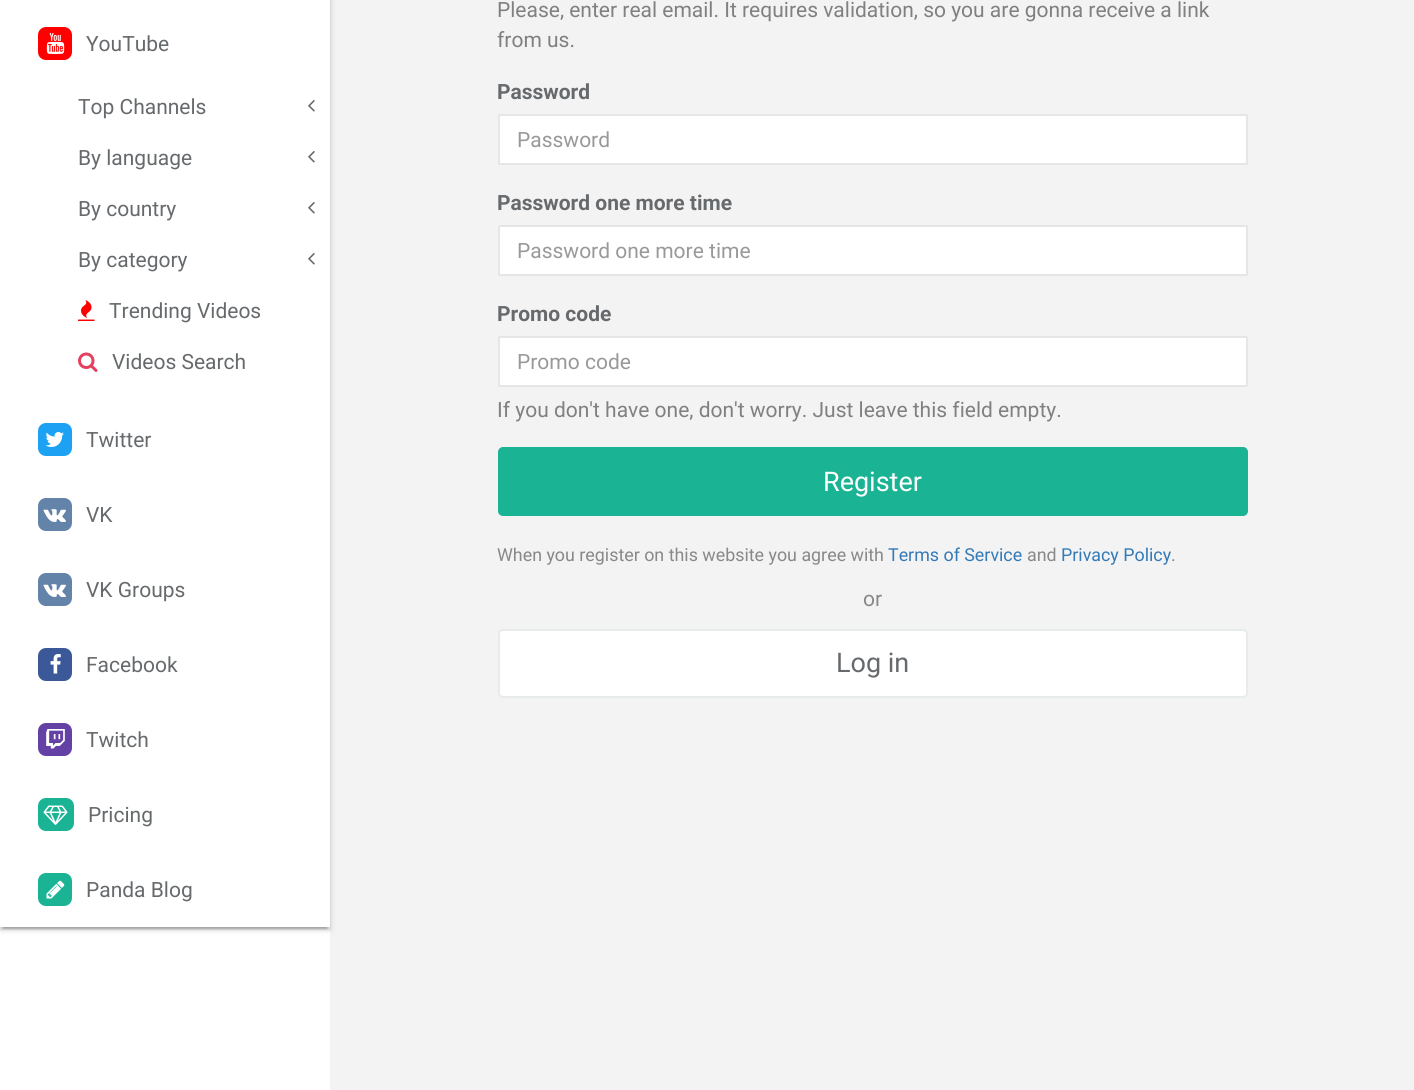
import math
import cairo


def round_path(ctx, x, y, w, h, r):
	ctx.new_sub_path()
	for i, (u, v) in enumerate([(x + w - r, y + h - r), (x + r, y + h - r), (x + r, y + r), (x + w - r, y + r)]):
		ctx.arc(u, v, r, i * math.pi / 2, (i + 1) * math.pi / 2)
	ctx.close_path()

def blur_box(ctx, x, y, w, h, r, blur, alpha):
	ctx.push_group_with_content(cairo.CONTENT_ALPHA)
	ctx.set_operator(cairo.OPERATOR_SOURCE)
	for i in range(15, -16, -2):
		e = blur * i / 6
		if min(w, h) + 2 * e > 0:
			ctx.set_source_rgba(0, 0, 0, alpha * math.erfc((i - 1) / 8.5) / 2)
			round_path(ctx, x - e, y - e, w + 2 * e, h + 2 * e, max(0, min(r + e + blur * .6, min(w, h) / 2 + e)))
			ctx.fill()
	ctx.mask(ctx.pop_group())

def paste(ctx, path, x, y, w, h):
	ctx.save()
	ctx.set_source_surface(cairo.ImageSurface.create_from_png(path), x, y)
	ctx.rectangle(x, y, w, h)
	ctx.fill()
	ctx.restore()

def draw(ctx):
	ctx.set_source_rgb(1, 1, 1)
	ctx.paint()
	ctx.set_source_rgb(0.953, 0.953, 0.957)
	ctx.rectangle(330, 0, 1084, 1090)
	ctx.fill()
	ctx.save()
	ctx.set_fill_rule(cairo.FILL_RULE_EVEN_ODD)
	ctx.new_path()
	ctx.move_to(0, 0)
	ctx.line_to(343, 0)
	ctx.line_to(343, 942)
	ctx.line_to(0, 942)
	ctx.close_path()
	ctx.move_to(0, -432)
	ctx.line_to(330, -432)
	ctx.line_to(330, 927)
	ctx.line_to(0, 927)
	ctx.close_path()
	ctx.clip()
	ctx.set_source_rgb(0, 0, 0)
	blur_box(ctx, 0, -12, 330, 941, 0, 4, 0.12)
	ctx.restore()
	ctx.save()
	ctx.rectangle(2, 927, 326, 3)
	ctx.clip()
	ctx.set_source_rgb(0, 0, 0)
	blur_box(ctx, 3, -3, 324, 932, 0, 1, 0.2)
	ctx.restore()
	ctx.save()
	ctx.set_fill_rule(cairo.FILL_RULE_EVEN_ODD)
	ctx.new_path()
	ctx.move_to(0, 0)
	ctx.line_to(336, 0)
	ctx.line_to(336, 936)
	ctx.line_to(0, 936)
	ctx.close_path()
	ctx.move_to(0, -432)
	ctx.line_to(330, -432)
	ctx.line_to(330, 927)
	ctx.line_to(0, 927)
	ctx.close_path()
	ctx.clip()
	ctx.set_source_rgb(0, 0, 0)
	blur_box(ctx, 0, -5, 330, 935, 0, 1.5, 0.14)
	ctx.restore()
	ctx.set_source_rgb(1, 0, 0)
	round_path(ctx, 38, 27, 34, 33, 8)
	ctx.fill()
	paste(ctx, 'media/1.png', 46, 33, 19, 21)
	ctx.select_font_face('Roboto')
	ctx.set_font_size(21)
	ctx.set_source_rgb(0.404, 0.416, 0.424)
	ctx.move_to(86, 51)
	ctx.show_text('YouTube')
	ctx.move_to(78, 114)
	ctx.show_text('Top Channels')
	paste(ctx, 'media/2.png', 308, 100, 7, 12)
	ctx.move_to(78, 165)
	ctx.show_text('By language')
	paste(ctx, 'media/2.png', 308, 151, 7, 12)
	ctx.move_to(78, 216)
	ctx.show_text('By country')
	paste(ctx, 'media/2.png', 308, 202, 7, 12)
	ctx.move_to(78, 267)
	ctx.show_text('By category')
	paste(ctx, 'media/2.png', 308, 253, 7, 12)
	paste(ctx, 'media/3.png', 78, 300, 17, 21)
	ctx.move_to(109, 318)
	ctx.show_text('Trending Videos')
	paste(ctx, 'media/4.png', 78, 352, 20, 20)
	ctx.move_to(112, 369)
	ctx.show_text('Videos Search')
	ctx.set_source_rgb(0.114, 0.631, 0.949)
	round_path(ctx, 38, 423, 34, 33, 8)
	ctx.fill()
	paste(ctx, 'media/5.png', 45, 432, 19, 15)
	ctx.set_source_rgb(0.404, 0.416, 0.424)
	ctx.move_to(86, 447)
	ctx.show_text('Twitter')
	ctx.set_source_rgb(0.388, 0.514, 0.659)
	round_path(ctx, 38, 498, 34, 33, 8)
	ctx.fill()
	paste(ctx, 'media/6.png', 43, 509, 23, 13)
	ctx.set_source_rgb(0.404, 0.416, 0.424)
	ctx.move_to(86, 522)
	ctx.show_text('VK')
	ctx.set_source_rgb(0.388, 0.514, 0.659)
	round_path(ctx, 38, 573, 34, 33, 8)
	ctx.fill()
	paste(ctx, 'media/6.png', 43, 584, 23, 13)
	ctx.set_source_rgb(0.404, 0.416, 0.424)
	ctx.move_to(86, 597)
	ctx.show_text('VK Groups')
	ctx.set_source_rgb(0.231, 0.349, 0.596)
	round_path(ctx, 38, 648, 34, 33, 8)
	ctx.fill()
	paste(ctx, 'media/7.png', 50, 654, 11, 20)
	ctx.set_source_rgb(0.404, 0.416, 0.424)
	ctx.move_to(86, 672)
	ctx.show_text('Facebook')
	ctx.set_source_rgb(0.392, 0.255, 0.643)
	round_path(ctx, 38, 723, 34, 33, 8)
	ctx.fill()
	paste(ctx, 'media/8.png', 46, 729, 19, 20)
	ctx.set_source_rgb(0.404, 0.416, 0.424)
	ctx.move_to(86, 747)
	ctx.show_text('Twitch')
	ctx.set_source_rgb(0.102, 0.702, 0.58)
	round_path(ctx, 38, 798, 36, 33, 8)
	ctx.fill()
	paste(ctx, 'media/9.png', 43, 805, 25, 20)
	ctx.set_source_rgb(0.404, 0.416, 0.424)
	ctx.move_to(88, 822)
	ctx.show_text('Pricing')
	ctx.set_source_rgb(0.102, 0.702, 0.58)
	round_path(ctx, 38, 873, 34, 33, 8)
	ctx.fill()
	paste(ctx, 'media/10.png', 46, 880, 19, 19)
	ctx.set_source_rgb(0.404, 0.416, 0.424)
	ctx.move_to(86, 897)
	ctx.show_text('Panda Blog')
	ctx.set_source_rgb(0.502, 0.502, 0.502)
	ctx.move_to(497, 17)
	ctx.show_text('Please, enter real email. It requires validation, so you are gonna receive a link')
	ctx.move_to(497, 47)
	ctx.show_text('from us.')
	ctx.select_font_face('Roboto', cairo.FONT_SLANT_NORMAL, cairo.FONT_WEIGHT_BOLD)
	ctx.set_source_rgb(0.404, 0.416, 0.424)
	ctx.move_to(497, 99)
	ctx.show_text('Password')
	ctx.set_source_rgb(1, 1, 1)
	round_path(ctx, 499, 115, 748, 49, 0.5)
	ctx.fill_preserve()
	ctx.set_source_rgb(0.898, 0.902, 0.906)
	ctx.stroke()
	ctx.select_font_face('Roboto')
	ctx.set_source_rgb(0.6, 0.6, 0.6)
	ctx.move_to(517, 147)
	ctx.show_text('Password')
	ctx.select_font_face('Roboto', cairo.FONT_SLANT_NORMAL, cairo.FONT_WEIGHT_BOLD)
	ctx.set_source_rgb(0.404, 0.416, 0.424)
	ctx.move_to(497, 210)
	ctx.show_text('Password one more time')
	ctx.set_source_rgb(1, 1, 1)
	round_path(ctx, 499, 226, 748, 49, 0.5)
	ctx.fill_preserve()
	ctx.set_source_rgb(0.898, 0.902, 0.906)
	ctx.stroke()
	ctx.select_font_face('Roboto')
	ctx.set_source_rgb(0.6, 0.6, 0.6)
	ctx.move_to(517, 258)
	ctx.show_text('Password one more time')
	ctx.select_font_face('Roboto', cairo.FONT_SLANT_NORMAL, cairo.FONT_WEIGHT_BOLD)
	ctx.set_source_rgb(0.404, 0.416, 0.424)
	ctx.move_to(497, 321)
	ctx.show_text('Promo code')
	ctx.set_source_rgb(1, 1, 1)
	round_path(ctx, 499, 337, 748, 49, 0.5)
	ctx.fill_preserve()
	ctx.set_source_rgb(0.898, 0.902, 0.906)
	ctx.stroke()
	ctx.select_font_face('Roboto')
	ctx.set_source_rgb(0.6, 0.6, 0.6)
	ctx.move_to(517, 369)
	ctx.show_text('Promo code')
	ctx.set_source_rgb(0.502, 0.502, 0.502)
	ctx.move_to(497, 417)
	ctx.show_text('If you don\'t have one, don\'t worry. Just leave this field empty.')
	ctx.set_source_rgb(0.102, 0.702, 0.58)
	round_path(ctx, 499, 448, 748, 67, 4)
	ctx.fill_preserve()
	ctx.stroke()
	ctx.set_font_size(27)
	ctx.set_source_rgb(1, 1, 1)
	ctx.move_to(823, 491)
	ctx.show_text('Register')
	ctx.set_font_size(17.85)
	ctx.set_source_rgb(0.533, 0.533, 0.533)
	ctx.move_to(497, 561)
	ctx.show_text('When you register on this website you agree with')
	ctx.set_source_rgb(0.2, 0.478, 0.718)
	ctx.move_to(888, 561)
	ctx.show_text('Terms of Service')
	ctx.set_source_rgb(0.533, 0.533, 0.533)
	ctx.move_to(1027, 561)
	ctx.show_text('and')
	ctx.set_source_rgb(0.2, 0.478, 0.718)
	ctx.move_to(1061, 561)
	ctx.show_text('Privacy Policy')
	ctx.set_source_rgb(0.533, 0.533, 0.533)
	ctx.move_to(1171, 561)
	ctx.show_text('.')
	ctx.set_font_size(21)
	ctx.move_to(863, 606)
	ctx.show_text('or')
	ctx.set_source_rgb(1, 1, 1)
	round_path(ctx, 499, 630, 748, 67, 4)
	ctx.fill_preserve()
	ctx.set_source_rgb(0.906, 0.918, 0.925)
	ctx.stroke()
	ctx.set_font_size(27)
	ctx.set_source_rgb(0.404, 0.416, 0.424)
	ctx.move_to(836, 672)
	ctx.show_text('Log in')


surface = cairo.ImageSurface(cairo.FORMAT_RGB24, 1414, 1090)
ctx = cairo.Context(surface)
options = cairo.FontOptions()
options.set_hint_metrics(cairo.HINT_METRICS_OFF)
options.set_hint_style(cairo.HINT_STYLE_NONE)
ctx.set_font_options(options)
ctx.set_miter_limit(4)
draw(ctx)
surface.write_to_png('image.png')
